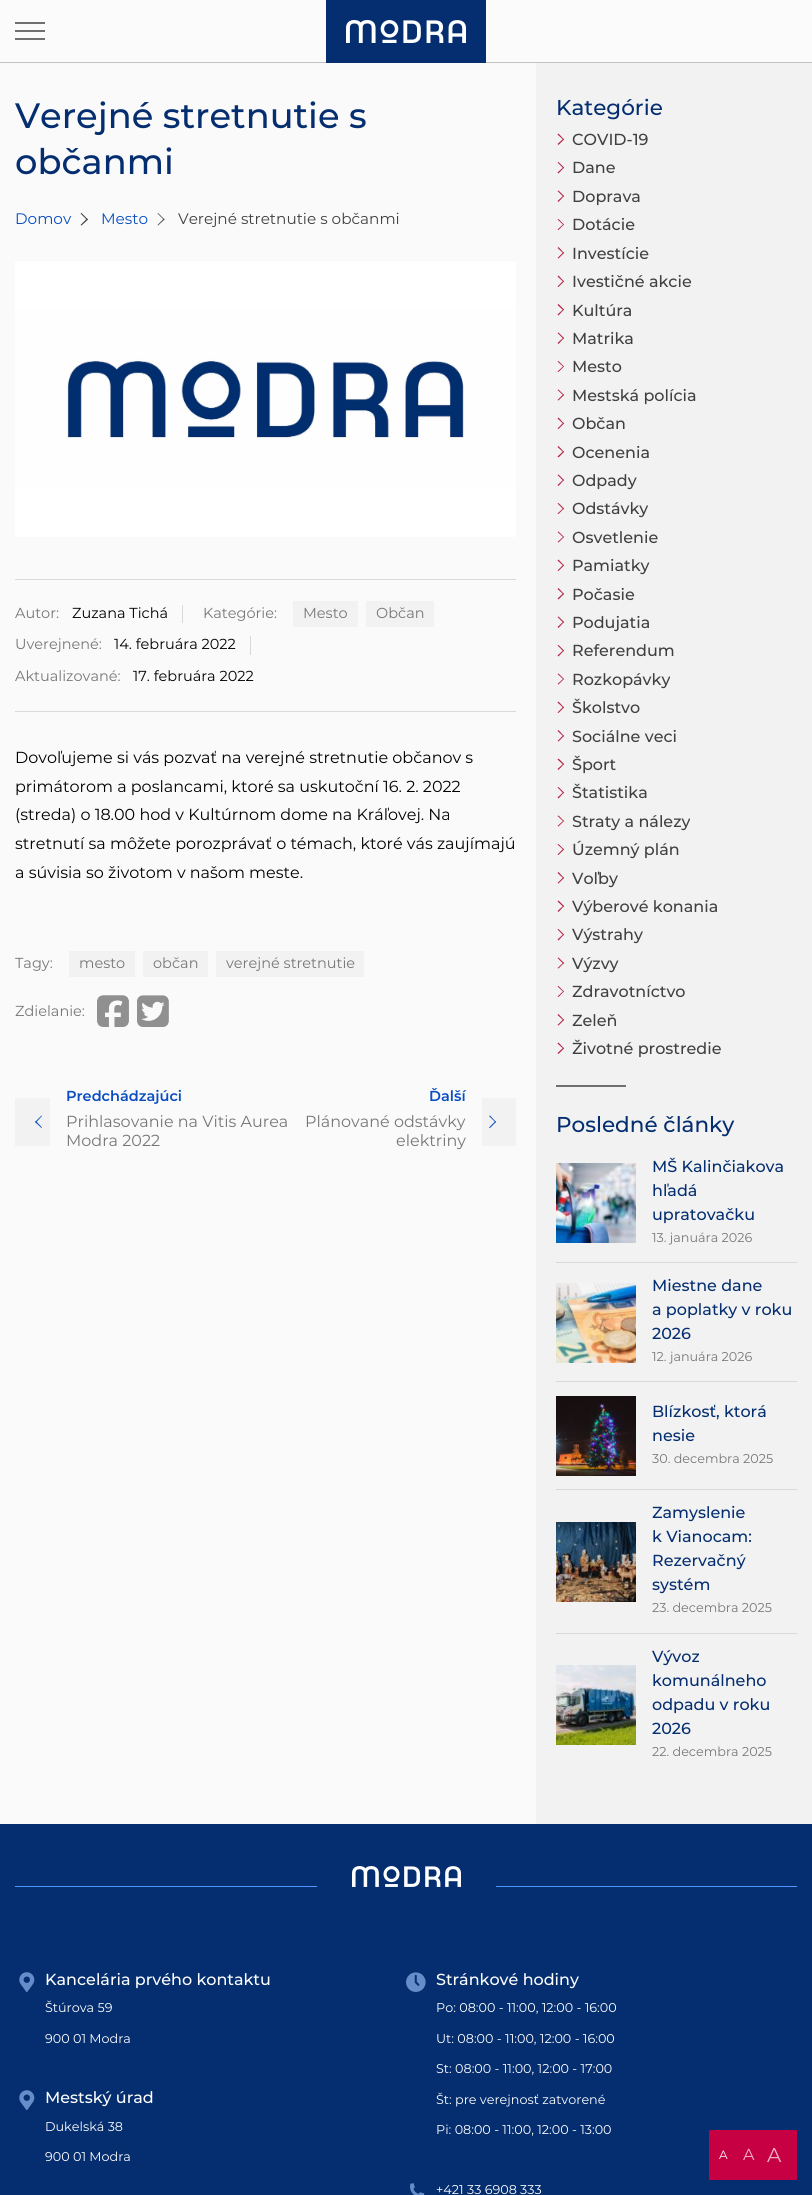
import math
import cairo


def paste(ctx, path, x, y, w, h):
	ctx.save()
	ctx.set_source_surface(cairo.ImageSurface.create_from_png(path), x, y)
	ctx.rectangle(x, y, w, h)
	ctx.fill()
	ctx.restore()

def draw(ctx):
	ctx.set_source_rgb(0.949, 0.949, 0.949)
	ctx.paint()
	ctx.set_source_rgb(0.984, 0.984, 0.984)
	ctx.rectangle(0, 0, 812, 62)
	ctx.fill()
	ctx.set_source_rgb(0.757, 0.757, 0.757)
	ctx.rectangle(0, 62, 812, 1)
	ctx.fill()
	ctx.set_source_rgb(0.439, 0.439, 0.439)
	ctx.rectangle(15, 22, 30, 2)
	ctx.rectangle(15, 30, 30, 2)
	ctx.rectangle(15, 38, 30, 2)
	ctx.fill()
	ctx.set_source_rgb(0.016, 0.18, 0.435)
	ctx.rectangle(326, 0, 160, 63)
	ctx.fill()
	paste(ctx, 'media/1.png', 346, 20, 120, 23)
	ctx.set_source_rgb(0.98, 0.98, 0.98)
	ctx.rectangle(0, 63, 536, 1761)
	ctx.fill()
	ctx.select_font_face('Montserrat Medium')
	ctx.set_font_size(35.25)
	ctx.set_source_rgb(0.016, 0.18, 0.435)
	ctx.move_to(15, 128)
	ctx.show_text('Verejné stretnutie s')
	ctx.move_to(15, 174)
	ctx.show_text('občanmi')
	ctx.select_font_face('Montserrat')
	ctx.set_font_size(15.25)
	ctx.set_source_rgb(0.039, 0.302, 0.757)
	ctx.move_to(15, 224)
	ctx.show_text('Domov')
	ctx.set_source_rgb(0.251, 0.251, 0.251)
	ctx.new_path()
	ctx.move_to(81.5, 213)
	ctx.line_to(88, 219.5)
	ctx.line_to(87, 220)
	ctx.line_to(80.5, 213.5)
	ctx.close_path()
	ctx.fill()
	ctx.new_path()
	ctx.move_to(87, 218.5)
	ctx.line_to(88, 219.5)
	ctx.line_to(81.5, 225.5)
	ctx.line_to(80.5, 225)
	ctx.close_path()
	ctx.fill()
	ctx.set_source_rgb(0.039, 0.302, 0.757)
	ctx.move_to(101, 224)
	ctx.show_text('Mesto')
	ctx.set_source_rgb(0.251, 0.251, 0.251)
	ctx.new_path()
	ctx.move_to(158, 213)
	ctx.line_to(164.5, 219.5)
	ctx.line_to(164, 220)
	ctx.line_to(157.5, 213.5)
	ctx.close_path()
	ctx.fill()
	ctx.new_path()
	ctx.move_to(164, 218.5)
	ctx.line_to(164.5, 219.5)
	ctx.line_to(158, 225.5)
	ctx.line_to(157.5, 225)
	ctx.close_path()
	ctx.fill()
	ctx.move_to(178, 224)
	ctx.show_text('Verejné stretnutie s občanmi')
	paste(ctx, 'media/2.png', 15, 261, 501, 276)
	ctx.set_source_rgb(0.851, 0.851, 0.851)
	ctx.rectangle(15, 579, 501, 1)
	ctx.fill()
	ctx.rectangle(15, 711, 501, 1)
	ctx.fill()
	ctx.set_font_size(14.5)
	ctx.set_source_rgb(0.467, 0.467, 0.467)
	ctx.move_to(15, 618)
	ctx.show_text('Autor:')
	ctx.set_source_rgb(0, 0, 0)
	ctx.move_to(72, 618)
	ctx.show_text('Zuzana Tichá')
	ctx.set_source_rgb(0.851, 0.851, 0.851)
	ctx.rectangle(182, 605, 1, 18)
	ctx.fill()
	ctx.set_source_rgb(0.467, 0.467, 0.467)
	ctx.move_to(203, 618)
	ctx.show_text('Kategórie:')
	ctx.set_source_rgb(0.949, 0.949, 0.949)
	ctx.rectangle(293, 601, 65, 26)
	ctx.fill()
	ctx.set_source_rgb(0.467, 0.467, 0.467)
	ctx.move_to(303, 618)
	ctx.show_text('Mesto')
	ctx.set_source_rgb(0.949, 0.949, 0.949)
	ctx.rectangle(366, 601, 68, 26)
	ctx.fill()
	ctx.set_source_rgb(0.467, 0.467, 0.467)
	ctx.move_to(376, 618)
	ctx.show_text('Občan')
	ctx.move_to(15, 649)
	ctx.show_text('Uverejnené:')
	ctx.set_source_rgb(0, 0, 0)
	ctx.move_to(114, 649)
	ctx.show_text('14. februára 2022')
	ctx.set_source_rgb(0.851, 0.851, 0.851)
	ctx.rectangle(250, 636, 1, 19)
	ctx.fill()
	ctx.set_source_rgb(0.467, 0.467, 0.467)
	ctx.move_to(15, 681)
	ctx.show_text('Aktualizované:')
	ctx.set_source_rgb(0, 0, 0)
	ctx.move_to(133, 681)
	ctx.show_text('17. februára 2022')
	ctx.set_font_size(16)
	for x, y, s in [
		(15, 763, 'Dovoľujeme si vás pozvať na verejné stretnutie občanov s'),
		(15, 792, 'primátorom a poslancami, ktoré sa uskutoční 16. 2. 2022'),
		(15, 820, '(streda) o 18.00 hod v Kultúrnom dome na Kráľovej. Na'),
		(15, 849, 'stretnutí sa môžete porozprávať o témach, ktoré vás zaujímajú'),
		(15, 878, 'a súvisia so životom v našom meste.'),
	]:
		ctx.move_to(x, y)
		ctx.show_text(s)
	ctx.set_font_size(14.5)
	ctx.set_source_rgb(0.467, 0.467, 0.467)
	ctx.move_to(15, 968)
	ctx.show_text('Tagy:')
	ctx.set_source_rgb(0.949, 0.949, 0.949)
	ctx.rectangle(69, 951, 66, 26)
	ctx.fill()
	ctx.set_source_rgb(0.467, 0.467, 0.467)
	ctx.move_to(79, 968)
	ctx.show_text('mesto')
	ctx.set_source_rgb(0.949, 0.949, 0.949)
	ctx.rectangle(143, 951, 65, 26)
	ctx.fill()
	ctx.set_source_rgb(0.467, 0.467, 0.467)
	ctx.move_to(153, 968)
	ctx.show_text('občan')
	ctx.set_source_rgb(0.949, 0.949, 0.949)
	ctx.rectangle(216, 951, 148, 26)
	ctx.fill()
	ctx.set_source_rgb(0.467, 0.467, 0.467)
	ctx.move_to(226, 968)
	ctx.show_text('verejné stretnutie')
	ctx.move_to(15, 1016)
	ctx.show_text('Zdielanie:')
	paste(ctx, 'media/3.png', 97, 995, 32, 32)
	paste(ctx, 'media/4.png', 137, 995, 32, 32)
	ctx.set_source_rgb(0.949, 0.949, 0.949)
	ctx.rectangle(15, 1098, 35, 48)
	ctx.fill()
	ctx.set_source_rgb(0.039, 0.302, 0.757)
	ctx.new_path()
	ctx.move_to(36, 1121)
	ctx.line_to(42, 1127.5)
	ctx.line_to(41.5, 1128)
	ctx.line_to(35, 1122)
	ctx.close_path()
	ctx.fill()
	ctx.new_path()
	ctx.move_to(41.5, 1115.5)
	ctx.line_to(42, 1116)
	ctx.line_to(36, 1122.5)
	ctx.line_to(35, 1122)
	ctx.close_path()
	ctx.fill()
	ctx.select_font_face('Montserrat SemiBold')
	ctx.move_to(66, 1101)
	ctx.show_text('Predchádzajúci')
	ctx.select_font_face('Montserrat')
	ctx.set_font_size(16)
	ctx.set_source_rgb(0.467, 0.467, 0.467)
	ctx.move_to(66, 1127)
	ctx.show_text('Prihlasovanie na Vitis Aurea')
	ctx.move_to(66, 1146)
	ctx.show_text('Modra 2022')
	ctx.select_font_face('Montserrat SemiBold')
	ctx.set_font_size(14.5)
	ctx.set_source_rgb(0.039, 0.302, 0.757)
	ctx.move_to(429, 1101)
	ctx.show_text('Ďalší')
	ctx.select_font_face('Montserrat')
	ctx.set_font_size(16)
	ctx.set_source_rgb(0.467, 0.467, 0.467)
	ctx.move_to(305, 1127)
	ctx.show_text('Plánované odstávky')
	ctx.move_to(396, 1146)
	ctx.show_text('elektriny')
	ctx.set_source_rgb(0.949, 0.949, 0.949)
	ctx.rectangle(482, 1098, 34, 48)
	ctx.fill()
	ctx.set_source_rgb(0.039, 0.302, 0.757)
	ctx.new_path()
	ctx.move_to(490, 1115.5)
	ctx.line_to(496, 1122)
	ctx.line_to(495.5, 1122.5)
	ctx.line_to(489, 1116)
	ctx.close_path()
	ctx.fill()
	ctx.new_path()
	ctx.move_to(495.5, 1121)
	ctx.line_to(496, 1122)
	ctx.line_to(490, 1128)
	ctx.line_to(489, 1127.5)
	ctx.close_path()
	ctx.fill()
	ctx.select_font_face('Montserrat Medium')
	ctx.set_font_size(21.5)
	ctx.set_source_rgb(0.016, 0.18, 0.435)
	ctx.move_to(556, 115)
	ctx.show_text('Kategórie')
	ctx.set_source_rgb(0.71, 0.145, 0.275)
	ctx.new_path()
	ctx.move_to(558.5, 133.5)
	ctx.line_to(564, 139.5)
	ctx.line_to(563.5, 140)
	ctx.line_to(557.5, 134.5)
	ctx.close_path()
	ctx.fill()
	ctx.new_path()
	ctx.move_to(563.5, 138.5)
	ctx.line_to(564, 139.5)
	ctx.line_to(558.5, 145)
	ctx.line_to(557.5, 144)
	ctx.close_path()
	ctx.fill()
	ctx.set_font_size(16)
	ctx.set_source_rgb(0.251, 0.251, 0.251)
	ctx.move_to(572, 145)
	ctx.show_text('COVID-19')
	ctx.set_source_rgb(0.71, 0.145, 0.275)
	ctx.new_path()
	ctx.move_to(558.5, 162)
	ctx.line_to(564, 167.5)
	ctx.line_to(563.5, 168.5)
	ctx.line_to(557.5, 162.5)
	ctx.close_path()
	ctx.fill()
	ctx.new_path()
	ctx.move_to(563.5, 167)
	ctx.line_to(564, 167.5)
	ctx.line_to(558.5, 173.5)
	ctx.line_to(557.5, 172.5)
	ctx.close_path()
	ctx.fill()
	ctx.set_source_rgb(0.251, 0.251, 0.251)
	ctx.move_to(572, 173)
	ctx.show_text('Dane')
	ctx.set_source_rgb(0.71, 0.145, 0.275)
	ctx.new_path()
	ctx.move_to(558.5, 190.5)
	ctx.line_to(564, 196)
	ctx.line_to(563.5, 197)
	ctx.line_to(557.5, 191)
	ctx.close_path()
	ctx.fill()
	ctx.new_path()
	ctx.move_to(563.5, 195.5)
	ctx.line_to(564, 196)
	ctx.line_to(558.5, 202)
	ctx.line_to(557.5, 201)
	ctx.close_path()
	ctx.fill()
	ctx.set_source_rgb(0.251, 0.251, 0.251)
	ctx.move_to(572, 202)
	ctx.show_text('Doprava')
	ctx.set_source_rgb(0.71, 0.145, 0.275)
	ctx.new_path()
	ctx.move_to(558.5, 219)
	ctx.line_to(564, 224.5)
	ctx.line_to(563.5, 225)
	ctx.line_to(557.5, 219.5)
	ctx.close_path()
	ctx.fill()
	ctx.new_path()
	ctx.move_to(563.5, 224)
	ctx.line_to(564, 224.5)
	ctx.line_to(558.5, 230)
	ctx.line_to(557.5, 229.5)
	ctx.close_path()
	ctx.fill()
	ctx.set_source_rgb(0.251, 0.251, 0.251)
	ctx.move_to(572, 230)
	ctx.show_text('Dotácie')
	ctx.set_source_rgb(0.71, 0.145, 0.275)
	ctx.new_path()
	ctx.move_to(558.5, 247)
	ctx.line_to(564, 253)
	ctx.line_to(563.5, 253.5)
	ctx.line_to(557.5, 248)
	ctx.close_path()
	ctx.fill()
	ctx.new_path()
	ctx.move_to(563.5, 252)
	ctx.line_to(564, 253)
	ctx.line_to(558.5, 258.5)
	ctx.line_to(557.5, 258)
	ctx.close_path()
	ctx.fill()
	ctx.set_source_rgb(0.251, 0.251, 0.251)
	ctx.move_to(572, 259)
	ctx.show_text('Investície')
	ctx.set_source_rgb(0.71, 0.145, 0.275)
	ctx.new_path()
	ctx.move_to(558.5, 275.5)
	ctx.line_to(564, 281.5)
	ctx.line_to(563.5, 282)
	ctx.line_to(557.5, 276.5)
	ctx.close_path()
	ctx.fill()
	ctx.new_path()
	ctx.move_to(563.5, 280.5)
	ctx.line_to(564, 281.5)
	ctx.line_to(558.5, 287)
	ctx.line_to(557.5, 286.5)
	ctx.close_path()
	ctx.fill()
	ctx.set_source_rgb(0.251, 0.251, 0.251)
	ctx.move_to(572, 287)
	ctx.show_text('Ivestičné akcie')
	ctx.set_source_rgb(0.71, 0.145, 0.275)
	ctx.new_path()
	ctx.move_to(558.5, 304)
	ctx.line_to(564, 309.5)
	ctx.line_to(563.5, 310.5)
	ctx.line_to(557.5, 305)
	ctx.close_path()
	ctx.fill()
	ctx.new_path()
	ctx.move_to(563.5, 309)
	ctx.line_to(564, 309.5)
	ctx.line_to(558.5, 315.5)
	ctx.line_to(557.5, 314.5)
	ctx.close_path()
	ctx.fill()
	ctx.set_source_rgb(0.251, 0.251, 0.251)
	ctx.move_to(572, 316)
	ctx.show_text('Kultúra')
	ctx.set_source_rgb(0.71, 0.145, 0.275)
	ctx.new_path()
	ctx.move_to(558.5, 332.5)
	ctx.line_to(564, 338)
	ctx.line_to(563.5, 339)
	ctx.line_to(557.5, 333)
	ctx.close_path()
	ctx.fill()
	ctx.new_path()
	ctx.move_to(563.5, 337.5)
	ctx.line_to(564, 338)
	ctx.line_to(558.5, 344)
	ctx.line_to(557.5, 343)
	ctx.close_path()
	ctx.fill()
	ctx.set_source_rgb(0.251, 0.251, 0.251)
	ctx.move_to(572, 344)
	ctx.show_text('Matrika')
	ctx.set_source_rgb(0.71, 0.145, 0.275)
	ctx.new_path()
	ctx.move_to(558.5, 361)
	ctx.line_to(564, 366.5)
	ctx.line_to(563.5, 367)
	ctx.line_to(557.5, 361.5)
	ctx.close_path()
	ctx.fill()
	ctx.new_path()
	ctx.move_to(563.5, 366)
	ctx.line_to(564, 366.5)
	ctx.line_to(558.5, 372)
	ctx.line_to(557.5, 371.5)
	ctx.close_path()
	ctx.fill()
	ctx.set_source_rgb(0.251, 0.251, 0.251)
	ctx.move_to(572, 372)
	ctx.show_text('Mesto')
	ctx.set_source_rgb(0.71, 0.145, 0.275)
	ctx.new_path()
	ctx.move_to(558.5, 389.5)
	ctx.line_to(564, 395)
	ctx.line_to(563.5, 395.5)
	ctx.line_to(557.5, 390)
	ctx.close_path()
	ctx.fill()
	ctx.new_path()
	ctx.move_to(563.5, 394)
	ctx.line_to(564, 395)
	ctx.line_to(558.5, 400.5)
	ctx.line_to(557.5, 400)
	ctx.close_path()
	ctx.fill()
	ctx.set_source_rgb(0.251, 0.251, 0.251)
	ctx.move_to(572, 401)
	ctx.show_text('Mestská polícia')
	ctx.set_source_rgb(0.71, 0.145, 0.275)
	ctx.new_path()
	ctx.move_to(558.5, 417.5)
	ctx.line_to(564, 423.5)
	ctx.line_to(563.5, 424)
	ctx.line_to(557.5, 418.5)
	ctx.close_path()
	ctx.fill()
	ctx.new_path()
	ctx.move_to(563.5, 422.5)
	ctx.line_to(564, 423.5)
	ctx.line_to(558.5, 429)
	ctx.line_to(557.5, 428.5)
	ctx.close_path()
	ctx.fill()
	ctx.set_source_rgb(0.251, 0.251, 0.251)
	ctx.move_to(572, 429)
	ctx.show_text('Občan')
	ctx.set_source_rgb(0.71, 0.145, 0.275)
	ctx.new_path()
	ctx.move_to(558.5, 446)
	ctx.line_to(564, 452)
	ctx.line_to(563.5, 452.5)
	ctx.line_to(557.5, 447)
	ctx.close_path()
	ctx.fill()
	ctx.new_path()
	ctx.move_to(563.5, 451)
	ctx.line_to(564, 452)
	ctx.line_to(558.5, 457.5)
	ctx.line_to(557.5, 456.5)
	ctx.close_path()
	ctx.fill()
	ctx.set_source_rgb(0.251, 0.251, 0.251)
	ctx.move_to(572, 458)
	ctx.show_text('Ocenenia')
	ctx.set_source_rgb(0.71, 0.145, 0.275)
	ctx.new_path()
	ctx.move_to(558.5, 474.5)
	ctx.line_to(564, 480)
	ctx.line_to(563.5, 481)
	ctx.line_to(557.5, 475)
	ctx.close_path()
	ctx.fill()
	ctx.new_path()
	ctx.move_to(563.5, 479.5)
	ctx.line_to(564, 480)
	ctx.line_to(558.5, 486)
	ctx.line_to(557.5, 485)
	ctx.close_path()
	ctx.fill()
	ctx.set_source_rgb(0.251, 0.251, 0.251)
	ctx.move_to(572, 486)
	ctx.show_text('Odpady')
	ctx.set_source_rgb(0.71, 0.145, 0.275)
	ctx.new_path()
	ctx.move_to(558.5, 503)
	ctx.line_to(564, 508.5)
	ctx.line_to(563.5, 509.5)
	ctx.line_to(557.5, 503.5)
	ctx.close_path()
	ctx.fill()
	ctx.new_path()
	ctx.move_to(563.5, 508)
	ctx.line_to(564, 508.5)
	ctx.line_to(558.5, 514)
	ctx.line_to(557.5, 513.5)
	ctx.close_path()
	ctx.fill()
	ctx.set_source_rgb(0.251, 0.251, 0.251)
	ctx.move_to(572, 514)
	ctx.show_text('Odstávky')
	ctx.set_source_rgb(0.71, 0.145, 0.275)
	ctx.new_path()
	ctx.move_to(558.5, 531.5)
	ctx.line_to(564, 537)
	ctx.line_to(563.5, 537.5)
	ctx.line_to(557.5, 532)
	ctx.close_path()
	ctx.fill()
	ctx.new_path()
	ctx.move_to(563.5, 536.5)
	ctx.line_to(564, 537)
	ctx.line_to(558.5, 542.5)
	ctx.line_to(557.5, 542)
	ctx.close_path()
	ctx.fill()
	ctx.set_source_rgb(0.251, 0.251, 0.251)
	ctx.move_to(572, 543)
	ctx.show_text('Osvetlenie')
	ctx.set_source_rgb(0.71, 0.145, 0.275)
	ctx.new_path()
	ctx.move_to(558.5, 559.5)
	ctx.line_to(564, 565.5)
	ctx.line_to(563.5, 566)
	ctx.line_to(557.5, 560.5)
	ctx.close_path()
	ctx.fill()
	ctx.new_path()
	ctx.move_to(563.5, 564.5)
	ctx.line_to(564, 565.5)
	ctx.line_to(558.5, 571)
	ctx.line_to(557.5, 570.5)
	ctx.close_path()
	ctx.fill()
	ctx.set_source_rgb(0.251, 0.251, 0.251)
	ctx.move_to(572, 571)
	ctx.show_text('Pamiatky')
	ctx.set_source_rgb(0.71, 0.145, 0.275)
	ctx.new_path()
	ctx.move_to(558.5, 588)
	ctx.line_to(564, 594)
	ctx.line_to(563.5, 594.5)
	ctx.line_to(557.5, 589)
	ctx.close_path()
	ctx.fill()
	ctx.new_path()
	ctx.move_to(563.5, 593)
	ctx.line_to(564, 594)
	ctx.line_to(558.5, 599.5)
	ctx.line_to(557.5, 598.5)
	ctx.close_path()
	ctx.fill()
	ctx.set_source_rgb(0.251, 0.251, 0.251)
	ctx.move_to(572, 600)
	ctx.show_text('Počasie')
	ctx.set_source_rgb(0.71, 0.145, 0.275)
	ctx.new_path()
	ctx.move_to(558.5, 616.5)
	ctx.line_to(564, 622)
	ctx.line_to(563.5, 623)
	ctx.line_to(557.5, 617)
	ctx.close_path()
	ctx.fill()
	ctx.new_path()
	ctx.move_to(563.5, 621.5)
	ctx.line_to(564, 622)
	ctx.line_to(558.5, 628)
	ctx.line_to(557.5, 627)
	ctx.close_path()
	ctx.fill()
	ctx.set_source_rgb(0.251, 0.251, 0.251)
	ctx.move_to(572, 628)
	ctx.show_text('Podujatia')
	ctx.set_source_rgb(0.71, 0.145, 0.275)
	ctx.new_path()
	ctx.move_to(558.5, 645)
	ctx.line_to(564, 650.5)
	ctx.line_to(563.5, 651.5)
	ctx.line_to(557.5, 645.5)
	ctx.close_path()
	ctx.fill()
	ctx.new_path()
	ctx.move_to(563.5, 650)
	ctx.line_to(564, 650.5)
	ctx.line_to(558.5, 656.5)
	ctx.line_to(557.5, 655.5)
	ctx.close_path()
	ctx.fill()
	ctx.set_source_rgb(0.251, 0.251, 0.251)
	ctx.move_to(572, 656)
	ctx.show_text('Referendum')
	ctx.set_source_rgb(0.71, 0.145, 0.275)
	ctx.new_path()
	ctx.move_to(558.5, 673.5)
	ctx.line_to(564, 679)
	ctx.line_to(563.5, 679.5)
	ctx.line_to(557.5, 674)
	ctx.close_path()
	ctx.fill()
	ctx.new_path()
	ctx.move_to(563.5, 678.5)
	ctx.line_to(564, 679)
	ctx.line_to(558.5, 684.5)
	ctx.line_to(557.5, 684)
	ctx.close_path()
	ctx.fill()
	ctx.set_source_rgb(0.251, 0.251, 0.251)
	ctx.move_to(572, 685)
	ctx.show_text('Rozkopávky')
	ctx.set_source_rgb(0.71, 0.145, 0.275)
	ctx.new_path()
	ctx.move_to(558.5, 701.5)
	ctx.line_to(564, 707.5)
	ctx.line_to(563.5, 708)
	ctx.line_to(557.5, 702.5)
	ctx.close_path()
	ctx.fill()
	ctx.new_path()
	ctx.move_to(563.5, 706.5)
	ctx.line_to(564, 707.5)
	ctx.line_to(558.5, 713)
	ctx.line_to(557.5, 712.5)
	ctx.close_path()
	ctx.fill()
	ctx.set_source_rgb(0.251, 0.251, 0.251)
	ctx.move_to(572, 713)
	ctx.show_text('Školstvo')
	ctx.set_source_rgb(0.71, 0.145, 0.275)
	ctx.new_path()
	ctx.move_to(558.5, 730)
	ctx.line_to(564, 736)
	ctx.line_to(563.5, 736.5)
	ctx.line_to(557.5, 731)
	ctx.close_path()
	ctx.fill()
	ctx.new_path()
	ctx.move_to(563.5, 735)
	ctx.line_to(564, 736)
	ctx.line_to(558.5, 741.5)
	ctx.line_to(557.5, 741)
	ctx.close_path()
	ctx.fill()
	ctx.set_source_rgb(0.251, 0.251, 0.251)
	ctx.move_to(572, 742)
	ctx.show_text('Sociálne veci')
	ctx.set_source_rgb(0.71, 0.145, 0.275)
	ctx.new_path()
	ctx.move_to(558.5, 758.5)
	ctx.line_to(564, 764)
	ctx.line_to(563.5, 765)
	ctx.line_to(557.5, 759.5)
	ctx.close_path()
	ctx.fill()
	ctx.new_path()
	ctx.move_to(563.5, 763.5)
	ctx.line_to(564, 764)
	ctx.line_to(558.5, 770)
	ctx.line_to(557.5, 769)
	ctx.close_path()
	ctx.fill()
	ctx.set_source_rgb(0.251, 0.251, 0.251)
	ctx.move_to(572, 770)
	ctx.show_text('Šport')
	ctx.set_source_rgb(0.71, 0.145, 0.275)
	ctx.new_path()
	ctx.move_to(558.5, 787)
	ctx.line_to(564, 792.5)
	ctx.line_to(563.5, 793.5)
	ctx.line_to(557.5, 787.5)
	ctx.close_path()
	ctx.fill()
	ctx.new_path()
	ctx.move_to(563.5, 792)
	ctx.line_to(564, 792.5)
	ctx.line_to(558.5, 798.5)
	ctx.line_to(557.5, 797.5)
	ctx.close_path()
	ctx.fill()
	ctx.set_source_rgb(0.251, 0.251, 0.251)
	ctx.move_to(572, 798)
	ctx.show_text('Štatistika')
	ctx.set_source_rgb(0.71, 0.145, 0.275)
	ctx.new_path()
	ctx.move_to(558.5, 815.5)
	ctx.line_to(564, 821)
	ctx.line_to(563.5, 821.5)
	ctx.line_to(557.5, 816)
	ctx.close_path()
	ctx.fill()
	ctx.new_path()
	ctx.move_to(563.5, 820.5)
	ctx.line_to(564, 821)
	ctx.line_to(558.5, 826.5)
	ctx.line_to(557.5, 826)
	ctx.close_path()
	ctx.fill()
	ctx.set_source_rgb(0.251, 0.251, 0.251)
	ctx.move_to(572, 827)
	ctx.show_text('Straty a nálezy')
	ctx.set_source_rgb(0.71, 0.145, 0.275)
	ctx.new_path()
	ctx.move_to(558.5, 844)
	ctx.line_to(564, 849.5)
	ctx.line_to(563.5, 850)
	ctx.line_to(557.5, 844.5)
	ctx.close_path()
	ctx.fill()
	ctx.new_path()
	ctx.move_to(563.5, 848.5)
	ctx.line_to(564, 849.5)
	ctx.line_to(558.5, 855)
	ctx.line_to(557.5, 854.5)
	ctx.close_path()
	ctx.fill()
	ctx.set_source_rgb(0.251, 0.251, 0.251)
	ctx.move_to(572, 855)
	ctx.show_text('Územný plán')
	ctx.set_source_rgb(0.71, 0.145, 0.275)
	ctx.new_path()
	ctx.move_to(558.5, 872)
	ctx.line_to(564, 878)
	ctx.line_to(563.5, 878.5)
	ctx.line_to(557.5, 873)
	ctx.close_path()
	ctx.fill()
	ctx.new_path()
	ctx.move_to(563.5, 877)
	ctx.line_to(564, 878)
	ctx.line_to(558.5, 883.5)
	ctx.line_to(557.5, 883)
	ctx.close_path()
	ctx.fill()
	ctx.set_source_rgb(0.251, 0.251, 0.251)
	ctx.move_to(572, 884)
	ctx.show_text('Voľby')
	ctx.set_source_rgb(0.71, 0.145, 0.275)
	ctx.new_path()
	ctx.move_to(558.5, 900.5)
	ctx.line_to(564, 906)
	ctx.line_to(563.5, 907)
	ctx.line_to(557.5, 901.5)
	ctx.close_path()
	ctx.fill()
	ctx.new_path()
	ctx.move_to(563.5, 905.5)
	ctx.line_to(564, 906)
	ctx.line_to(558.5, 912)
	ctx.line_to(557.5, 911)
	ctx.close_path()
	ctx.fill()
	ctx.set_source_rgb(0.251, 0.251, 0.251)
	ctx.move_to(572, 912)
	ctx.show_text('Výberové konania')
	ctx.set_source_rgb(0.71, 0.145, 0.275)
	ctx.new_path()
	ctx.move_to(558.5, 929)
	ctx.line_to(564, 934.5)
	ctx.line_to(563.5, 935.5)
	ctx.line_to(557.5, 929.5)
	ctx.close_path()
	ctx.fill()
	ctx.new_path()
	ctx.move_to(563.5, 934)
	ctx.line_to(564, 934.5)
	ctx.line_to(558.5, 940.5)
	ctx.line_to(557.5, 939.5)
	ctx.close_path()
	ctx.fill()
	ctx.set_source_rgb(0.251, 0.251, 0.251)
	ctx.move_to(572, 940)
	ctx.show_text('Výstrahy')
	ctx.set_source_rgb(0.71, 0.145, 0.275)
	ctx.new_path()
	ctx.move_to(558.5, 957.5)
	ctx.line_to(564, 963)
	ctx.line_to(563.5, 964)
	ctx.line_to(557.5, 958)
	ctx.close_path()
	ctx.fill()
	ctx.new_path()
	ctx.move_to(563.5, 962.5)
	ctx.line_to(564, 963)
	ctx.line_to(558.5, 968.5)
	ctx.line_to(557.5, 968)
	ctx.close_path()
	ctx.fill()
	ctx.set_source_rgb(0.251, 0.251, 0.251)
	ctx.move_to(572, 969)
	ctx.show_text('Výzvy')
	ctx.set_source_rgb(0.71, 0.145, 0.275)
	ctx.new_path()
	ctx.move_to(558.5, 986)
	ctx.line_to(564, 991.5)
	ctx.line_to(563.5, 992)
	ctx.line_to(557.5, 986.5)
	ctx.close_path()
	ctx.fill()
	ctx.new_path()
	ctx.move_to(563.5, 991)
	ctx.line_to(564, 991.5)
	ctx.line_to(558.5, 997)
	ctx.line_to(557.5, 996.5)
	ctx.close_path()
	ctx.fill()
	ctx.set_source_rgb(0.251, 0.251, 0.251)
	ctx.move_to(572, 997)
	ctx.show_text('Zdravotníctvo')
	ctx.set_source_rgb(0.71, 0.145, 0.275)
	ctx.new_path()
	ctx.move_to(558.5, 1014)
	ctx.line_to(564, 1020)
	ctx.line_to(563.5, 1020.5)
	ctx.line_to(557.5, 1015)
	ctx.close_path()
	ctx.fill()
	ctx.new_path()
	ctx.move_to(563.5, 1019)
	ctx.line_to(564, 1020)
	ctx.line_to(558.5, 1025.5)
	ctx.line_to(557.5, 1025)
	ctx.close_path()
	ctx.fill()
	ctx.set_source_rgb(0.251, 0.251, 0.251)
	ctx.move_to(572, 1026)
	ctx.show_text('Zeleň')
	ctx.set_source_rgb(0.71, 0.145, 0.275)
	ctx.new_path()
	ctx.move_to(558.5, 1042.5)
	ctx.line_to(564, 1048.5)
	ctx.line_to(563.5, 1049)
	ctx.line_to(557.5, 1043.5)
	ctx.close_path()
	ctx.fill()
	ctx.new_path()
	ctx.move_to(563.5, 1047.5)
	ctx.line_to(564, 1048.5)
	ctx.line_to(558.5, 1054)
	ctx.line_to(557.5, 1053)
	ctx.close_path()
	ctx.fill()
	ctx.set_source_rgb(0.251, 0.251, 0.251)
	ctx.move_to(572, 1054)
	ctx.show_text('Životné prostredie')
	ctx.set_source_rgb(0.439, 0.439, 0.439)
	ctx.rectangle(556, 1085, 70, 2)
	ctx.fill()
	ctx.set_font_size(21.5)
	ctx.set_source_rgb(0.016, 0.18, 0.435)
	ctx.move_to(556, 1132)
	ctx.show_text('Posledné články')
	paste(ctx, 'media/5.png', 556, 1163, 80, 80)
	ctx.set_font_size(16)
	for x, y, s in [
		(652, 1172, 'MŠ Kalinčiakova'),
		(652, 1196, 'hľadá'),
		(652, 1220, 'upratovačku'),
	]:
		ctx.move_to(x, y)
		ctx.show_text(s)
	ctx.select_font_face('Montserrat')
	ctx.set_font_size(12.75)
	ctx.set_source_rgb(0.467, 0.467, 0.467)
	ctx.move_to(652, 1242)
	ctx.show_text('13. januára 2026')
	ctx.set_source_rgb(0.851, 0.851, 0.851)
	ctx.rectangle(556, 1262, 241, 1)
	ctx.fill()
	paste(ctx, 'media/6.png', 556, 1283, 80, 80)
	ctx.select_font_face('Montserrat Medium')
	ctx.set_font_size(16)
	ctx.set_source_rgb(0.016, 0.18, 0.435)
	for x, y, s in [
		(652, 1291, 'Miestne dane'),
		(652, 1315, 'a poplatky v roku'),
		(652, 1339, '2026'),
	]:
		ctx.move_to(x, y)
		ctx.show_text(s)
	ctx.select_font_face('Montserrat')
	ctx.set_font_size(12.75)
	ctx.set_source_rgb(0.467, 0.467, 0.467)
	ctx.move_to(652, 1361)
	ctx.show_text('12. januára 2026')
	ctx.set_source_rgb(0.851, 0.851, 0.851)
	ctx.rectangle(556, 1381, 241, 1)
	ctx.fill()
	paste(ctx, 'media/7.png', 556, 1396, 80, 80)
	ctx.select_font_face('Montserrat Medium')
	ctx.set_font_size(16)
	ctx.set_source_rgb(0.016, 0.18, 0.435)
	ctx.move_to(652, 1417)
	ctx.show_text('Blízkosť, ktorá')
	ctx.move_to(652, 1441)
	ctx.show_text('nesie')
	ctx.select_font_face('Montserrat')
	ctx.set_font_size(12.75)
	ctx.set_source_rgb(0.467, 0.467, 0.467)
	ctx.move_to(652, 1463)
	ctx.show_text('30. decembra 2025')
	ctx.set_source_rgb(0.851, 0.851, 0.851)
	ctx.rectangle(556, 1489, 241, 1)
	ctx.fill()
	paste(ctx, 'media/8.png', 556, 1522, 80, 80)
	ctx.select_font_face('Montserrat Medium')
	ctx.set_font_size(16)
	ctx.set_source_rgb(0.016, 0.18, 0.435)
	for x, y, s in [
		(652, 1518, 'Zamyslenie'),
		(652, 1542, 'k Vianocam:'),
		(652, 1566, 'Rezervačný'),
		(652, 1590, 'systém'),
	]:
		ctx.move_to(x, y)
		ctx.show_text(s)
	ctx.select_font_face('Montserrat')
	ctx.set_font_size(12.75)
	ctx.set_source_rgb(0.467, 0.467, 0.467)
	ctx.move_to(652, 1612)
	ctx.show_text('23. decembra 2025')
	ctx.set_source_rgb(0.851, 0.851, 0.851)
	ctx.rectangle(556, 1633, 241, 1)
	ctx.fill()
	paste(ctx, 'media/9.png', 556, 1665, 80, 80)
	ctx.select_font_face('Montserrat Medium')
	ctx.set_font_size(16)
	ctx.set_source_rgb(0.016, 0.18, 0.435)
	for x, y, s in [
		(652, 1662, 'Vývoz'),
		(652, 1686, 'komunálneho'),
		(652, 1710, 'odpadu v roku'),
		(652, 1734, '2026'),
	]:
		ctx.move_to(x, y)
		ctx.show_text(s)
	ctx.select_font_face('Montserrat')
	ctx.set_font_size(12.75)
	ctx.set_source_rgb(0.467, 0.467, 0.467)
	ctx.move_to(652, 1756)
	ctx.show_text('22. decembra 2025')
	ctx.set_source_rgb(0.016, 0.18, 0.435)
	ctx.rectangle(0, 1824, 812, 371)
	ctx.fill()
	ctx.set_source_rgb(0.314, 0.584, 1)
	ctx.rectangle(15, 1886, 302, 1)
	ctx.fill()
	paste(ctx, 'media/10.png', 352, 1866, 109, 21)
	ctx.rectangle(496, 1886, 301, 1)
	ctx.fill()
	paste(ctx, 'media/11.png', 19, 1972, 16, 20)
	ctx.select_font_face('Montserrat Medium')
	ctx.set_font_size(16)
	ctx.set_source_rgb(1, 1, 1)
	ctx.move_to(45, 1985)
	ctx.show_text('Kancelária prvého kontaktu')
	ctx.select_font_face('Montserrat')
	ctx.set_font_size(12.75)
	ctx.move_to(45, 2012)
	ctx.show_text('Štúrova 59')
	ctx.move_to(45, 2043)
	ctx.show_text('900 01 Modra')
	paste(ctx, 'media/11.png', 19, 2090, 16, 20)
	ctx.select_font_face('Montserrat Medium')
	ctx.set_font_size(16)
	ctx.move_to(45, 2103)
	ctx.show_text('Mestský úrad')
	ctx.select_font_face('Montserrat')
	ctx.set_font_size(12.75)
	ctx.move_to(45, 2131)
	ctx.show_text('Dukelská 38')
	ctx.move_to(45, 2161)
	ctx.show_text('900 01 Modra')
	paste(ctx, 'media/12.png', 406, 1972, 20, 20)
	ctx.select_font_face('Montserrat Medium')
	ctx.set_font_size(16)
	ctx.move_to(436, 1985)
	ctx.show_text('Stránkové hodiny')
	ctx.select_font_face('Montserrat')
	ctx.set_font_size(12.75)
	for x, y, s in [
		(436, 2012, 'Po: 08:00 - 11:00, 12:00 - 16:00'),
		(436, 2043, 'Ut: 08:00 - 11:00, 12:00 - 16:00'),
		(436, 2073, 'St: 08:00 - 11:00, 12:00 - 17:00'),
		(436, 2104, 'Št: pre verejnosť zatvorené'),
		(436, 2134, 'Pi: 08:00 - 11:00, 12:00 - 13:00'),
	]:
		ctx.move_to(x, y)
		ctx.show_text(s)
	paste(ctx, 'media/13.png', 410, 2183, 15, 12)
	ctx.move_to(436, 2194)
	ctx.show_text('+421 33 6908 333')
	ctx.set_source_rgb(0.776, 0, 0.263)
	ctx.rectangle(709, 2130, 88, 50)
	ctx.fill()
	ctx.set_font_size(12)
	ctx.set_source_rgb(1, 1, 1)
	ctx.move_to(719, 2159)
	ctx.show_text('A')
	ctx.set_font_size(16)
	ctx.set_source_rgb(0.933, 0.702, 0.78)
	ctx.move_to(743, 2160)
	ctx.show_text('A')
	ctx.set_font_size(20)
	ctx.move_to(767, 2162)
	ctx.show_text('A')


surface = cairo.ImageSurface(cairo.FORMAT_RGB24, 812, 2195)
ctx = cairo.Context(surface)
options = cairo.FontOptions()
options.set_hint_metrics(cairo.HINT_METRICS_OFF)
options.set_hint_style(cairo.HINT_STYLE_NONE)
ctx.set_font_options(options)
ctx.set_miter_limit(4)
draw(ctx)
surface.write_to_png('image.png')
